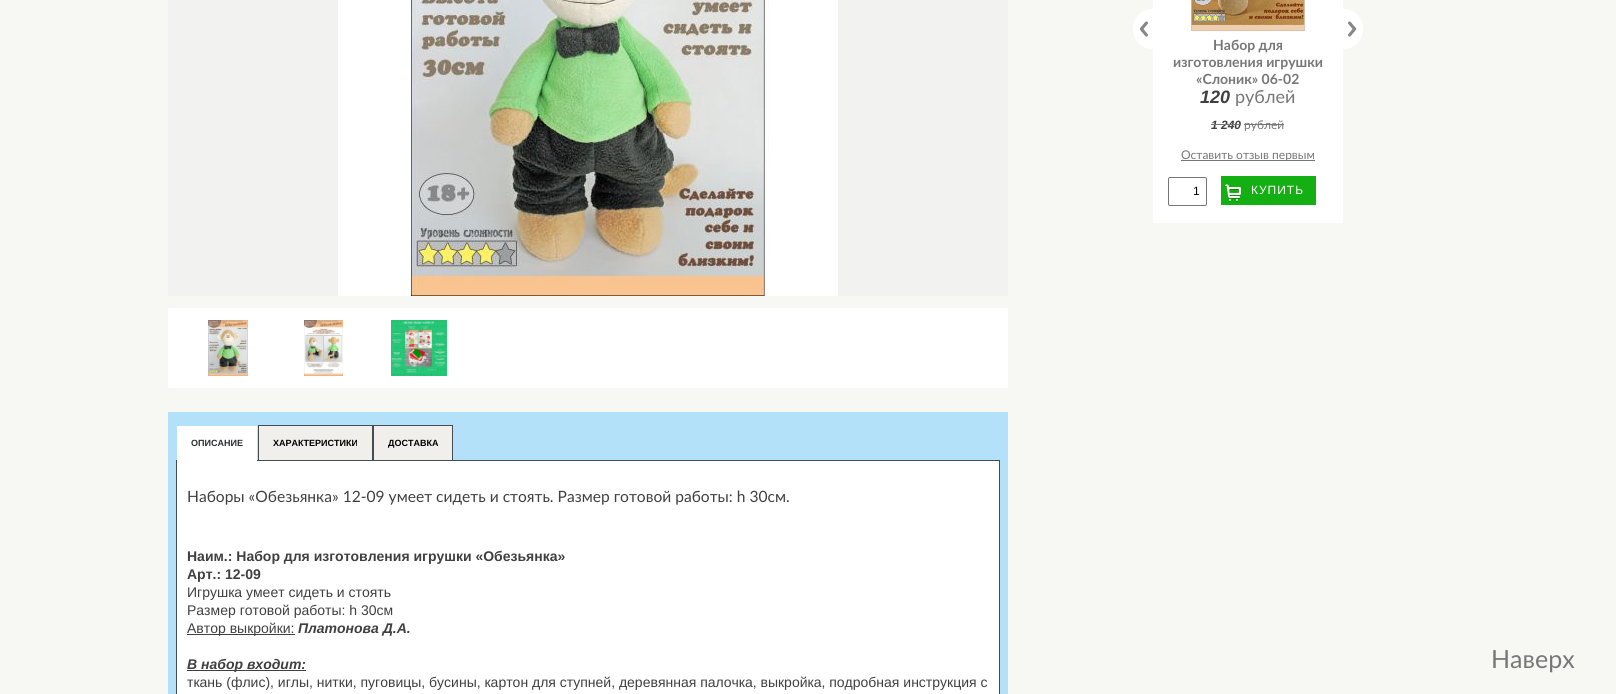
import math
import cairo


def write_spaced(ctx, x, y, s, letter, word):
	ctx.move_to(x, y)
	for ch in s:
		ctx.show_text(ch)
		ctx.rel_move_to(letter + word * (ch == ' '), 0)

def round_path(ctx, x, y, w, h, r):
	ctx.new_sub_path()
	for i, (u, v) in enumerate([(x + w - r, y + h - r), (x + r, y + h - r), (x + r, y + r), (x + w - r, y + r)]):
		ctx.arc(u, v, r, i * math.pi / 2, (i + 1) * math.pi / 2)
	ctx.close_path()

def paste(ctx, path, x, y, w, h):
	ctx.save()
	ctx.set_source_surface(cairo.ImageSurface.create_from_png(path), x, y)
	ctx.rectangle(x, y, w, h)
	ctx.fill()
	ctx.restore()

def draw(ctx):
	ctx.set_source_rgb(0.965, 0.965, 0.957)
	ctx.paint()
	ctx.set_source_rgb(1, 1, 1)
	ctx.rectangle(1153, 0, 190, 223)
	ctx.fill()
	paste(ctx, 'media/1.png', 1133, 9, 20, 40)
	paste(ctx, 'media/2.png', 1343, 9, 20, 40)
	paste(ctx, 'media/3.png', 1188, 0, 119, 31)
	ctx.select_font_face('Lato', cairo.FONT_SLANT_NORMAL, cairo.FONT_WEIGHT_BOLD)
	ctx.set_font_size(14)
	ctx.set_source_rgb(0.467, 0.467, 0.467)
	for x, y, s in [
		(1213, 50, 'Набор для'),
		(1173, 67, 'изготовления игрушки'),
		(1196, 84, '«Слоник» 06-02'),
	]:
		ctx.move_to(x, y)
		ctx.show_text(s)
	ctx.select_font_face('Liberation Sans', cairo.FONT_SLANT_ITALIC, cairo.FONT_WEIGHT_BOLD)
	ctx.set_font_size(18)
	ctx.set_source_rgb(0.251, 0.251, 0.251)
	ctx.move_to(1200, 103)
	ctx.show_text('120')
	ctx.select_font_face('Lato')
	ctx.set_source_rgb(0.467, 0.467, 0.467)
	ctx.move_to(1235, 103)
	ctx.show_text('рублей')
	ctx.select_font_face('Liberation Sans', cairo.FONT_SLANT_ITALIC, cairo.FONT_WEIGHT_BOLD)
	ctx.set_font_size(12)
	ctx.set_source_rgb(0.251, 0.251, 0.251)
	ctx.move_to(1211, 129)
	ctx.show_text('1 240')
	ctx.set_source_rgb(0.467, 0.467, 0.467)
	ctx.rectangle(1211, 124, 30, 1)
	ctx.fill()
	ctx.select_font_face('Lato')
	ctx.move_to(1244, 129)
	ctx.show_text('рублей')
	ctx.rectangle(1244, 124, 40, 1)
	ctx.fill()
	ctx.rectangle(1181, 160, 134, 1)
	ctx.fill()
	ctx.move_to(1181, 159)
	ctx.show_text('Оставить отзыв первым')
	round_path(ctx, 1168.5, 177.5, 38, 28, 1.5)
	ctx.set_source_rgb(0.463, 0.463, 0.463)
	ctx.set_line_width(1)
	ctx.stroke()
	ctx.select_font_face('Liberation Sans')
	ctx.set_source_rgb(0, 0, 0)
	ctx.move_to(1193, 195)
	ctx.show_text('1')
	ctx.set_source_rgb(0.075, 0.686, 0.075)
	ctx.rectangle(1221, 176, 95, 29)
	ctx.fill()
	paste(ctx, 'media/4.png', 1225, 184, 16, 18)
	ctx.set_source_rgb(1, 1, 1)
	write_spaced(ctx, 1251, 194, 'КУПИТЬ', 1, 0)
	ctx.set_source_rgb(0.949, 0.949, 0.941)
	ctx.rectangle(168, 0, 840, 296)
	ctx.fill()
	paste(ctx, 'media/5.png', 338, 0, 500, 296)
	ctx.set_source_rgb(1, 1, 1)
	ctx.rectangle(168, 308, 840, 80)
	ctx.fill()
	paste(ctx, 'media/6.png', 208, 320, 40, 56)
	paste(ctx, 'media/7.png', 304, 320, 39, 56)
	paste(ctx, 'media/8.png', 391, 320, 56, 56)
	ctx.set_source_rgb(0.702, 0.882, 0.973)
	ctx.rectangle(168, 412, 840, 282)
	ctx.fill()
	ctx.set_source_rgb(1, 1, 1)
	ctx.rectangle(176.5, 460.5, 823, 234)
	ctx.fill_preserve()
	ctx.set_source_rgb(0.275, 0.298, 0.329)
	ctx.stroke()
	ctx.set_source_rgb(1, 1, 1)
	ctx.rectangle(177, 426, 80, 35)
	ctx.fill()
	ctx.select_font_face('Liberation Sans', cairo.FONT_SLANT_NORMAL, cairo.FONT_WEIGHT_BOLD)
	ctx.set_font_size(9)
	ctx.set_source_rgb(0.157, 0.18, 0.196)
	ctx.move_to(191, 446)
	ctx.show_text('ОПИСАНИЕ')
	ctx.set_source_rgb(0.941, 0.937, 0.922)
	ctx.rectangle(258.5, 425.5, 114, 35)
	ctx.fill_preserve()
	ctx.set_source_rgb(0.275, 0.298, 0.329)
	ctx.stroke()
	ctx.set_source_rgb(0, 0, 0)
	ctx.move_to(273, 446)
	ctx.show_text('ХАРАКТЕРИСТИКИ')
	ctx.set_source_rgb(0.941, 0.937, 0.922)
	ctx.rectangle(373.5, 425.5, 79, 35)
	ctx.fill_preserve()
	ctx.set_source_rgb(0.275, 0.298, 0.329)
	ctx.stroke()
	ctx.set_source_rgb(0, 0, 0)
	ctx.move_to(388, 446)
	ctx.show_text('ДОСТАВКА')
	ctx.select_font_face('Lato')
	ctx.set_font_size(15.6)
	ctx.set_source_rgb(0.251, 0.251, 0.251)
	ctx.move_to(187, 502)
	ctx.show_text('Наборы «Обезьянка» 12-09 умеет сидеть и стоять. Размер готовой работы: h 30см.')
	ctx.select_font_face('Liberation Sans', cairo.FONT_SLANT_NORMAL, cairo.FONT_WEIGHT_BOLD)
	ctx.set_font_size(14)
	ctx.move_to(187, 561)
	ctx.show_text('Наим.: Набор для изготовления игрушки «Обезьянка»')
	ctx.move_to(187, 579)
	ctx.show_text('Арт.: 12-09')
	ctx.select_font_face('Liberation Sans')
	ctx.move_to(187, 597)
	ctx.show_text('Игрушка умеет сидеть и стоять')
	ctx.move_to(187, 615)
	ctx.show_text('Размер готовой работы: h 30см')
	ctx.rectangle(187, 634, 108, 1)
	ctx.fill()
	ctx.move_to(187, 633)
	ctx.show_text('Автор выкройки:')
	ctx.select_font_face('Liberation Sans', cairo.FONT_SLANT_ITALIC, cairo.FONT_WEIGHT_BOLD)
	ctx.move_to(298, 633)
	ctx.show_text('Платонова Д.А.')
	ctx.rectangle(187, 670, 119, 1)
	ctx.fill()
	ctx.move_to(187, 669)
	ctx.show_text('В набор входит:')
	ctx.select_font_face('Liberation Sans')
	ctx.move_to(187, 687)
	ctx.show_text('ткань (флис), иглы, нитки, пуговицы, бусины, картон для ступней, деревянная палочка, выкройка, подробная инструкция с')
	ctx.select_font_face('Lato')
	ctx.set_font_size(25)
	ctx.set_source_rgb(0.467, 0.467, 0.467)
	ctx.move_to(1491, 668)
	ctx.show_text('Наверх')


surface = cairo.ImageSurface(cairo.FORMAT_RGB24, 1616, 694)
ctx = cairo.Context(surface)
options = cairo.FontOptions()
options.set_hint_metrics(cairo.HINT_METRICS_OFF)
options.set_hint_style(cairo.HINT_STYLE_NONE)
ctx.set_font_options(options)
ctx.set_miter_limit(4)
draw(ctx)
surface.write_to_png('image.png')
